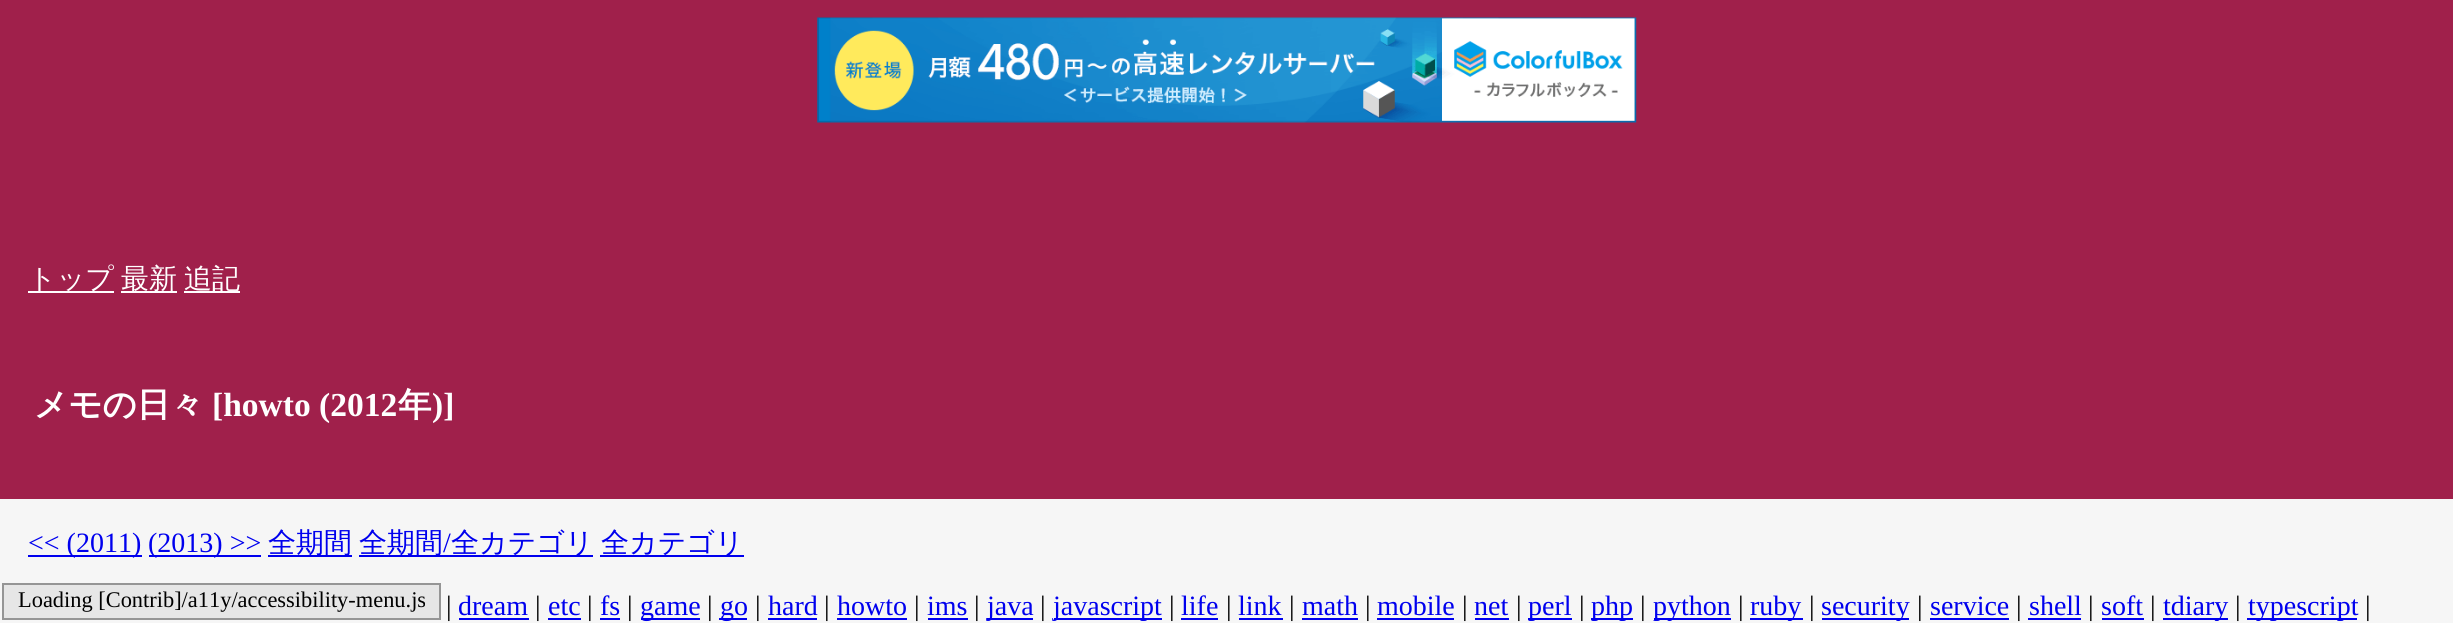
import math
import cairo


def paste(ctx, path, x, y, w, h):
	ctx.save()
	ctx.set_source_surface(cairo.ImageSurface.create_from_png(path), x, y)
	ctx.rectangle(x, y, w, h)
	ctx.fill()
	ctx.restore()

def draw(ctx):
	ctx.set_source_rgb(0.961, 0.961, 0.961)
	ctx.paint()
	ctx.set_source_rgb(0.627, 0.125, 0.294)
	ctx.rectangle(0, 0, 2453, 499)
	ctx.fill()
	paste(ctx, 'media/1.png', 817, 17, 820, 106)
	ctx.set_source_rgb(1, 1, 1)
	ctx.rectangle(28, 291, 86, 2)
	ctx.fill()
	ctx.select_font_face('WenQuanYi Zen Hei Medium')
	ctx.set_font_size(28)
	ctx.move_to(28, 288)
	ctx.show_text('トップ')
	ctx.rectangle(121, 291, 56, 2)
	ctx.fill()
	ctx.move_to(121, 288)
	ctx.show_text('最新')
	ctx.rectangle(184, 291, 56, 2)
	ctx.fill()
	ctx.move_to(184, 288)
	ctx.show_text('追記')
	ctx.select_font_face('WenQuanYi Zen Hei', cairo.FONT_SLANT_NORMAL, cairo.FONT_WEIGHT_BOLD)
	ctx.set_font_size(33.5)
	ctx.move_to(34, 416)
	ctx.show_text('メモの日々')
	ctx.select_font_face('Liberation Serif', cairo.FONT_SLANT_NORMAL, cairo.FONT_WEIGHT_BOLD)
	ctx.move_to(212, 416)
	ctx.show_text('[howto (2012')
	ctx.select_font_face('WenQuanYi Zen Hei', cairo.FONT_SLANT_NORMAL, cairo.FONT_WEIGHT_BOLD)
	ctx.move_to(398, 416)
	ctx.show_text('年')
	ctx.select_font_face('Liberation Serif', cairo.FONT_SLANT_NORMAL, cairo.FONT_WEIGHT_BOLD)
	ctx.move_to(432, 416)
	ctx.show_text(')]')
	ctx.set_source_rgb(0, 0, 0.933)
	ctx.rectangle(28, 555, 114, 2)
	ctx.fill()
	ctx.select_font_face('Liberation Serif')
	ctx.set_font_size(28)
	ctx.move_to(28, 552)
	ctx.show_text('<< (2011)')
	ctx.rectangle(149, 555, 112, 2)
	ctx.fill()
	ctx.move_to(148, 552)
	ctx.show_text('(2013) >>')
	ctx.rectangle(268, 555, 84, 2)
	ctx.fill()
	ctx.select_font_face('WenQuanYi Zen Hei Medium')
	ctx.move_to(268, 552)
	ctx.show_text('全期間')
	ctx.rectangle(359, 555, 234, 2)
	ctx.fill()
	ctx.move_to(359, 552)
	ctx.show_text('全期間')
	ctx.select_font_face('Liberation Serif')
	ctx.move_to(443, 552)
	ctx.show_text('/')
	ctx.select_font_face('WenQuanYi Zen Hei Medium')
	ctx.move_to(451, 552)
	ctx.show_text('全カテゴリ')
	ctx.rectangle(600, 555, 144, 2)
	ctx.fill()
	ctx.move_to(601, 552)
	ctx.show_text('全カテゴリ')
	ctx.select_font_face('Liberation Serif')
	ctx.set_source_rgb(0, 0, 0)
	ctx.move_to(446, 615)
	ctx.show_text('|')
	ctx.set_source_rgb(0, 0, 0.933)
	ctx.move_to(458, 615)
	ctx.show_text('dream')
	ctx.rectangle(459, 618, 70, 2)
	ctx.fill()
	ctx.set_source_rgb(0, 0, 0)
	ctx.move_to(535, 615)
	ctx.show_text('|')
	ctx.set_source_rgb(0, 0, 0.933)
	ctx.move_to(548, 615)
	ctx.show_text('etc')
	ctx.rectangle(548, 618, 33, 2)
	ctx.fill()
	ctx.set_source_rgb(0, 0, 0)
	ctx.move_to(587, 615)
	ctx.show_text('|')
	ctx.set_source_rgb(0, 0, 0.933)
	ctx.move_to(600, 615)
	ctx.show_text('fs')
	ctx.rectangle(600, 618, 20, 2)
	ctx.fill()
	ctx.set_source_rgb(0, 0, 0)
	ctx.move_to(627, 615)
	ctx.show_text('|')
	ctx.set_source_rgb(0, 0, 0.933)
	ctx.rectangle(641, 618, 59, 2)
	ctx.fill()
	ctx.move_to(640, 615)
	ctx.show_text('game')
	ctx.set_source_rgb(0, 0, 0)
	ctx.move_to(707, 615)
	ctx.show_text('|')
	ctx.set_source_rgb(0, 0, 0.933)
	ctx.rectangle(719, 618, 28, 2)
	ctx.fill()
	ctx.move_to(720, 615)
	ctx.show_text('go')
	ctx.set_source_rgb(0, 0, 0)
	ctx.move_to(755, 615)
	ctx.show_text('|')
	ctx.set_source_rgb(0, 0, 0.933)
	ctx.move_to(768, 615)
	ctx.show_text('hard')
	ctx.rectangle(768, 618, 49, 2)
	ctx.fill()
	ctx.set_source_rgb(0, 0, 0)
	ctx.move_to(824, 615)
	ctx.show_text('|')
	ctx.set_source_rgb(0, 0, 0.933)
	ctx.move_to(837, 615)
	ctx.show_text('howto')
	ctx.rectangle(837, 618, 70, 2)
	ctx.fill()
	ctx.set_source_rgb(0, 0, 0)
	ctx.move_to(914, 615)
	ctx.show_text('|')
	ctx.set_source_rgb(0, 0, 0.933)
	ctx.move_to(927, 615)
	ctx.show_text('ims')
	ctx.rectangle(928, 618, 40, 2)
	ctx.fill()
	ctx.set_source_rgb(0, 0, 0)
	ctx.move_to(974, 615)
	ctx.show_text('|')
	ctx.set_source_rgb(0, 0, 0.933)
	ctx.rectangle(987, 618, 46, 2)
	ctx.fill()
	ctx.move_to(987, 615)
	ctx.show_text('java')
	ctx.set_source_rgb(0, 0, 0)
	ctx.move_to(1040, 615)
	ctx.show_text('|')
	ctx.set_source_rgb(0, 0, 0.933)
	ctx.rectangle(1054, 618, 108, 2)
	ctx.fill()
	ctx.move_to(1053, 615)
	ctx.show_text('javascript')
	ctx.set_source_rgb(0, 0, 0)
	ctx.move_to(1169, 615)
	ctx.show_text('|')
	ctx.set_source_rgb(0, 0, 0.933)
	ctx.move_to(1181, 615)
	ctx.show_text('life')
	ctx.rectangle(1181, 618, 37, 2)
	ctx.fill()
	ctx.set_source_rgb(0, 0, 0)
	ctx.move_to(1226, 615)
	ctx.show_text('|')
	ctx.set_source_rgb(0, 0, 0.933)
	ctx.move_to(1238, 615)
	ctx.show_text('link')
	ctx.rectangle(1239, 618, 44, 2)
	ctx.fill()
	ctx.set_source_rgb(0, 0, 0)
	ctx.move_to(1289, 615)
	ctx.show_text('|')
	ctx.set_source_rgb(0, 0, 0.933)
	ctx.move_to(1302, 615)
	ctx.show_text('math')
	ctx.rectangle(1302, 618, 56, 2)
	ctx.fill()
	ctx.set_source_rgb(0, 0, 0)
	ctx.move_to(1365, 615)
	ctx.show_text('|')
	ctx.set_source_rgb(0, 0, 0.933)
	ctx.move_to(1377, 615)
	ctx.show_text('mobile')
	ctx.rectangle(1377, 618, 77, 2)
	ctx.fill()
	ctx.set_source_rgb(0, 0, 0)
	ctx.move_to(1462, 615)
	ctx.show_text('|')
	ctx.set_source_rgb(0, 0, 0.933)
	ctx.move_to(1474, 615)
	ctx.show_text('net')
	ctx.rectangle(1475, 618, 34, 2)
	ctx.fill()
	ctx.set_source_rgb(0, 0, 0)
	ctx.move_to(1516, 615)
	ctx.show_text('|')
	ctx.set_source_rgb(0, 0, 0.933)
	ctx.rectangle(1528, 618, 44, 2)
	ctx.fill()
	ctx.move_to(1528, 615)
	ctx.show_text('perl')
	ctx.set_source_rgb(0, 0, 0)
	ctx.move_to(1579, 615)
	ctx.show_text('|')
	ctx.set_source_rgb(0, 0, 0.933)
	ctx.rectangle(1591, 618, 42, 2)
	ctx.fill()
	ctx.move_to(1591, 615)
	ctx.show_text('php')
	ctx.set_source_rgb(0, 0, 0)
	ctx.move_to(1640, 615)
	ctx.show_text('|')
	ctx.set_source_rgb(0, 0, 0.933)
	ctx.rectangle(1654, 618, 77, 2)
	ctx.fill()
	ctx.move_to(1653, 615)
	ctx.show_text('python')
	ctx.set_source_rgb(0, 0, 0)
	ctx.move_to(1738, 615)
	ctx.show_text('|')
	ctx.set_source_rgb(0, 0, 0.933)
	ctx.rectangle(1750, 618, 53, 2)
	ctx.fill()
	ctx.move_to(1750, 615)
	ctx.show_text('ruby')
	ctx.set_source_rgb(0, 0, 0)
	ctx.move_to(1809, 615)
	ctx.show_text('|')
	ctx.set_source_rgb(0, 0, 0.933)
	ctx.rectangle(1822, 618, 87, 2)
	ctx.fill()
	ctx.move_to(1821, 615)
	ctx.show_text('security')
	ctx.set_source_rgb(0, 0, 0)
	ctx.move_to(1917, 615)
	ctx.show_text('|')
	ctx.set_source_rgb(0, 0, 0.933)
	ctx.move_to(1930, 615)
	ctx.show_text('service')
	ctx.rectangle(1930, 618, 79, 2)
	ctx.fill()
	ctx.set_source_rgb(0, 0, 0)
	ctx.move_to(2016, 615)
	ctx.show_text('|')
	ctx.set_source_rgb(0, 0, 0.933)
	ctx.move_to(2029, 615)
	ctx.show_text('shell')
	ctx.rectangle(2028, 618, 53, 2)
	ctx.fill()
	ctx.set_source_rgb(0, 0, 0)
	ctx.move_to(2088, 615)
	ctx.show_text('|')
	ctx.set_source_rgb(0, 0, 0.933)
	ctx.move_to(2101, 615)
	ctx.show_text('soft')
	ctx.rectangle(2102, 618, 42, 2)
	ctx.fill()
	ctx.set_source_rgb(0, 0, 0)
	ctx.move_to(2150, 615)
	ctx.show_text('|')
	ctx.set_source_rgb(0, 0, 0.933)
	ctx.rectangle(2163, 618, 65, 2)
	ctx.fill()
	ctx.move_to(2163, 615)
	ctx.show_text('tdiary')
	ctx.set_source_rgb(0, 0, 0)
	ctx.move_to(2235, 615)
	ctx.show_text('|')
	ctx.set_source_rgb(0, 0, 0.933)
	ctx.rectangle(2247, 618, 110, 2)
	ctx.fill()
	ctx.move_to(2248, 615)
	ctx.show_text('typescript')
	ctx.set_source_rgb(0, 0, 0)
	ctx.move_to(2365, 615)
	ctx.show_text('|')
	ctx.set_source_rgb(0.902, 0.902, 0.902)
	ctx.rectangle(3, 584, 437, 35)
	ctx.fill_preserve()
	ctx.set_source_rgb(0.584, 0.584, 0.584)
	ctx.stroke()
	ctx.set_font_size(22.4)
	ctx.set_source_rgb(0, 0, 0)
	ctx.move_to(18, 607)
	ctx.show_text('Loading [Contrib]/a11y/accessibility-menu.js')


surface = cairo.ImageSurface(cairo.FORMAT_RGB24, 2453, 623)
ctx = cairo.Context(surface)
options = cairo.FontOptions()
options.set_hint_metrics(cairo.HINT_METRICS_OFF)
options.set_hint_style(cairo.HINT_STYLE_NONE)
ctx.set_font_options(options)
ctx.set_miter_limit(4)
draw(ctx)
surface.write_to_png('image.png')
